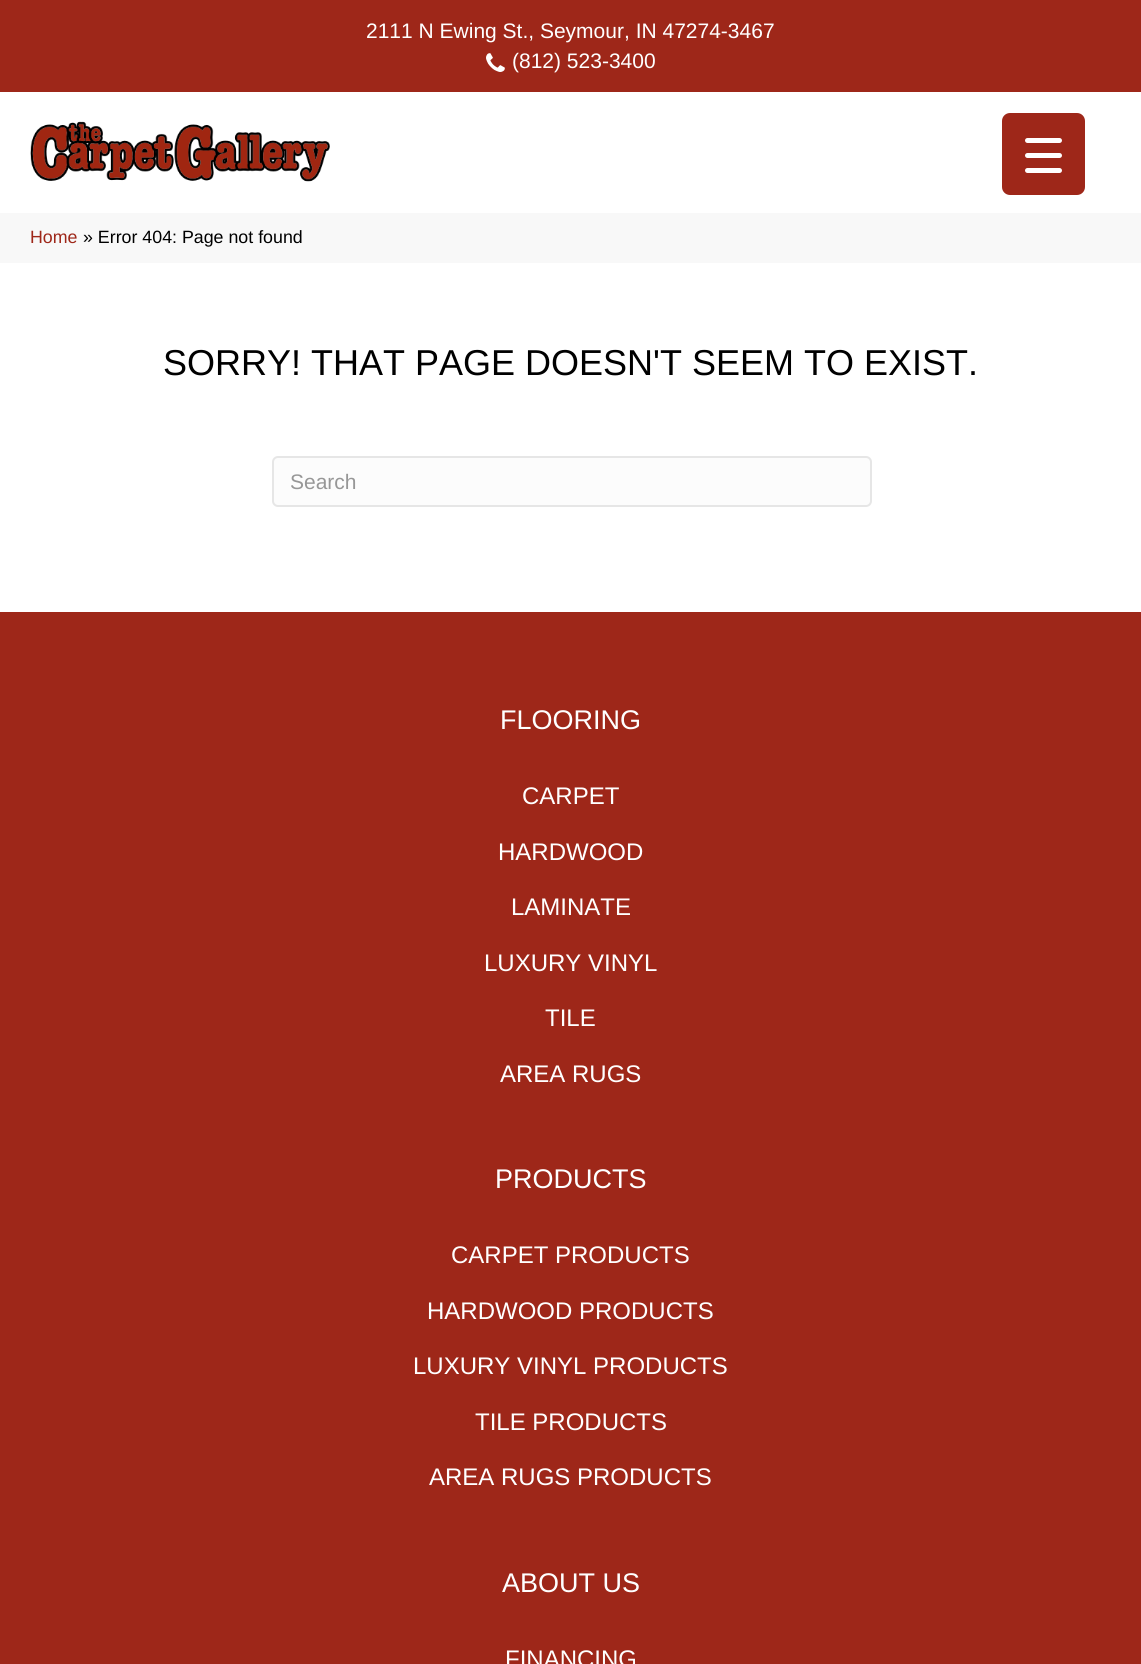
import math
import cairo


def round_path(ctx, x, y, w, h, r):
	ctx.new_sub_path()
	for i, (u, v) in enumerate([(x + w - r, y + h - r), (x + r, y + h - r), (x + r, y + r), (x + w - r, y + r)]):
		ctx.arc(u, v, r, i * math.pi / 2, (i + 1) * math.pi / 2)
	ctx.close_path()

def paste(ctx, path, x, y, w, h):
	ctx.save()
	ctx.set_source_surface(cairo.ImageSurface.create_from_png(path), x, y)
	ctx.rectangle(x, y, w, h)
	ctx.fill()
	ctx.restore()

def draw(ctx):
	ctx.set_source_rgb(1, 1, 1)
	ctx.paint()
	ctx.set_source_rgb(0.62, 0.153, 0.098)
	ctx.rectangle(0, 0, 1141, 92)
	ctx.fill()
	ctx.select_font_face('Liberation Sans')
	ctx.set_font_size(21)
	ctx.set_source_rgb(1, 1, 1)
	ctx.move_to(366, 38)
	ctx.show_text('2111 N Ewing St., Seymour, IN 47274-3467')
	paste(ctx, 'media/1.png', 486, 53, 19, 19)
	ctx.move_to(512, 68)
	ctx.show_text('(812) 523-3400')
	paste(ctx, 'media/2.png', 30, 121, 300, 61)
	ctx.set_source_rgb(0.969, 0.969, 0.969)
	ctx.rectangle(0, 213, 1141, 50)
	ctx.fill()
	ctx.set_font_size(17.8)
	ctx.set_source_rgb(0.62, 0.153, 0.098)
	ctx.move_to(30, 243)
	ctx.show_text('Home')
	ctx.set_source_rgb(0, 0, 0)
	ctx.move_to(83, 243)
	ctx.show_text('» Error 404: Page not found')
	ctx.set_font_size(36)
	ctx.move_to(163, 375)
	ctx.show_text('SORRY! THAT PAGE DOESN\'T SEEM TO EXIST.')
	ctx.set_source_rgb(0.988, 0.988, 0.988)
	round_path(ctx, 273, 457, 598, 49, 5)
	ctx.fill_preserve()
	ctx.set_source_rgb(0.902, 0.902, 0.902)
	ctx.stroke()
	ctx.set_font_size(21)
	ctx.set_source_rgb(0.592, 0.592, 0.592)
	ctx.move_to(290, 489)
	ctx.show_text('Search')
	ctx.set_source_rgb(0.62, 0.153, 0.098)
	ctx.rectangle(0, 612, 1141, 1052)
	ctx.fill()
	ctx.set_font_size(27)
	ctx.set_source_rgb(1, 1, 1)
	ctx.move_to(500, 729)
	ctx.show_text('FLOORING')
	ctx.set_font_size(24)
	for x, y, s in [
		(522, 804, 'CARPET'),
		(498, 860, 'HARDWOOD'),
		(511, 915, 'LAMINATE'),
		(484, 971, 'LUXURY VINYL'),
		(545, 1026, 'TILE'),
		(500, 1082, 'AREA RUGS'),
	]:
		ctx.move_to(x, y)
		ctx.show_text(s)
	ctx.set_font_size(27)
	ctx.move_to(495, 1188)
	ctx.show_text('PRODUCTS')
	ctx.set_font_size(24)
	for x, y, s in [
		(451, 1263, 'CARPET PRODUCTS'),
		(427, 1319, 'HARDWOOD PRODUCTS'),
		(413, 1374, 'LUXURY VINYL PRODUCTS'),
		(475, 1430, 'TILE PRODUCTS'),
		(429, 1485, 'AREA RUGS PRODUCTS'),
	]:
		ctx.move_to(x, y)
		ctx.show_text(s)
	ctx.set_font_size(27)
	ctx.move_to(502, 1592)
	ctx.show_text('ABOUT US')
	ctx.set_font_size(24)
	ctx.move_to(505, 1667)
	ctx.show_text('FINANCING')
	ctx.set_source_rgb(0.62, 0.153, 0.098)
	round_path(ctx, 1002, 113, 83, 82, 8)
	ctx.fill()
	ctx.set_source_rgb(1, 1, 1)
	round_path(ctx, 1025, 153, 37, 5, 2.5)
	ctx.fill()
	round_path(ctx, 1025, 138, 37, 5, 2.5)
	ctx.fill()
	round_path(ctx, 1025, 168, 37, 5, 2.5)
	ctx.fill()


surface = cairo.ImageSurface(cairo.FORMAT_RGB24, 1141, 1664)
ctx = cairo.Context(surface)
options = cairo.FontOptions()
options.set_hint_metrics(cairo.HINT_METRICS_OFF)
options.set_hint_style(cairo.HINT_STYLE_NONE)
ctx.set_font_options(options)
ctx.set_miter_limit(4)
draw(ctx)
surface.write_to_png('image.png')
